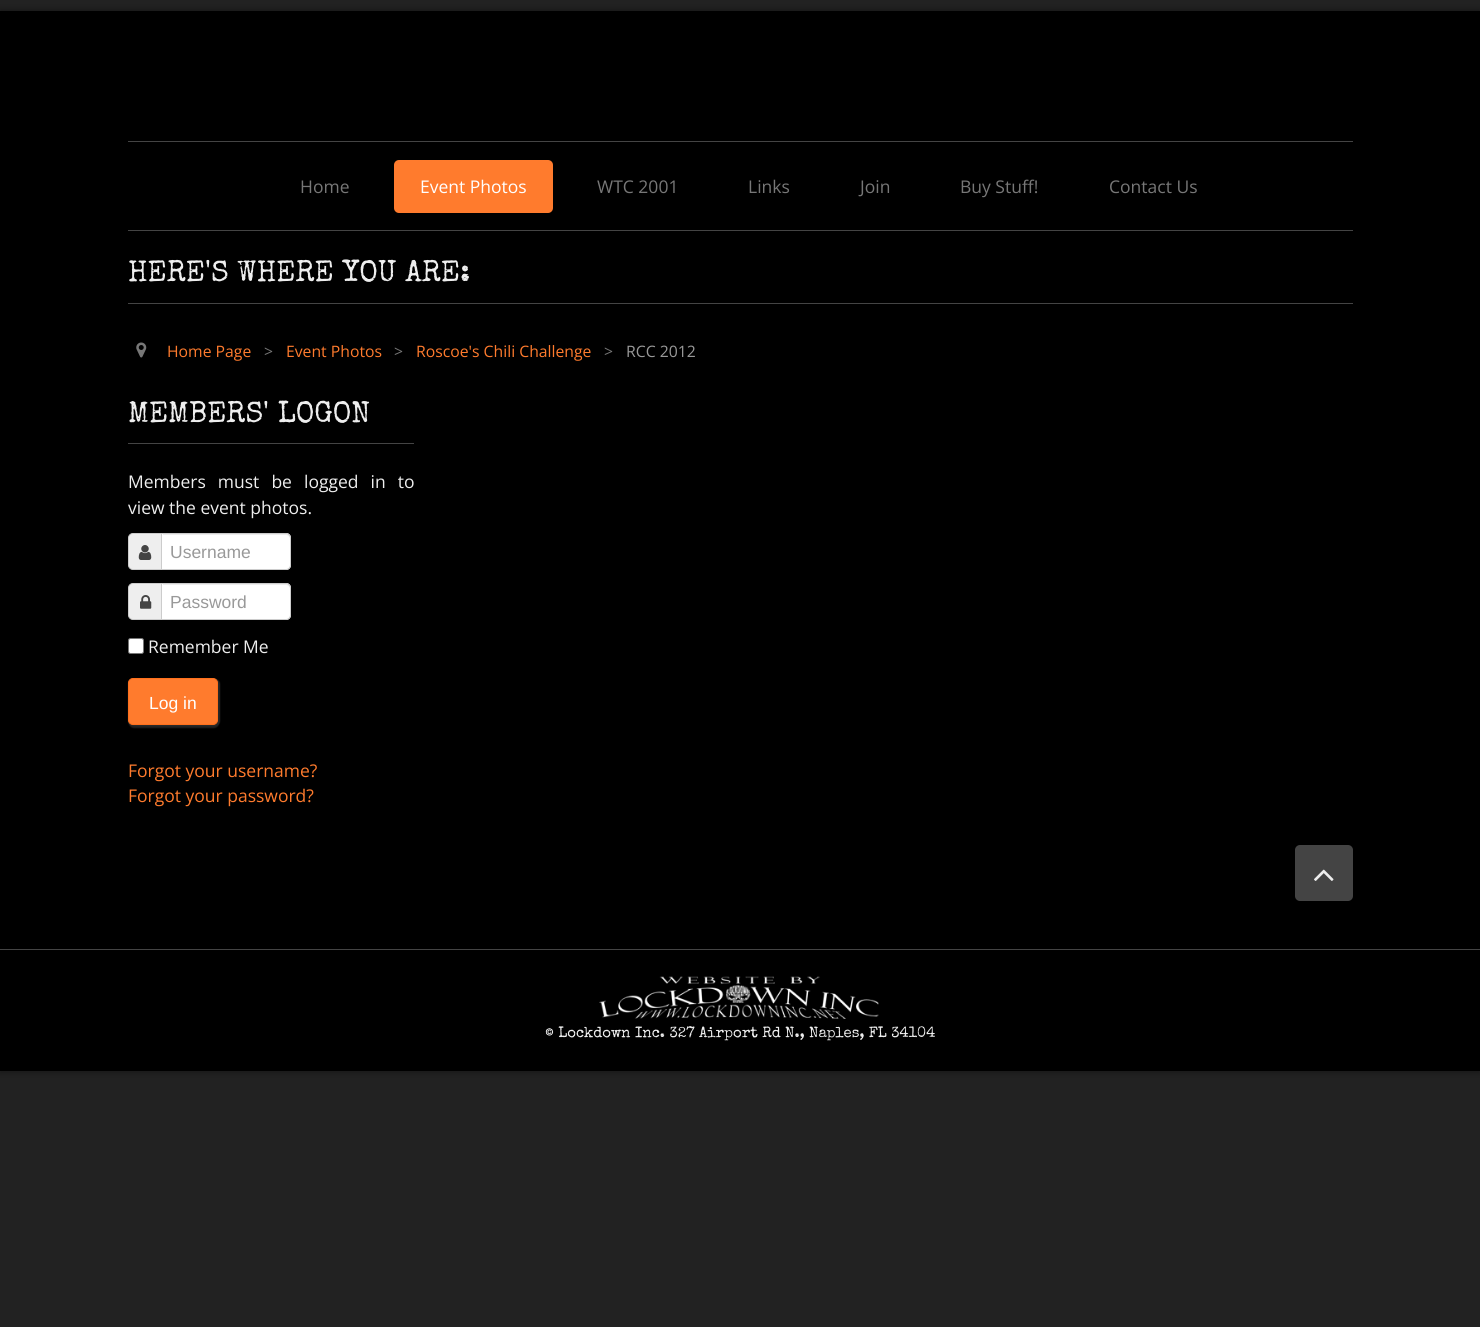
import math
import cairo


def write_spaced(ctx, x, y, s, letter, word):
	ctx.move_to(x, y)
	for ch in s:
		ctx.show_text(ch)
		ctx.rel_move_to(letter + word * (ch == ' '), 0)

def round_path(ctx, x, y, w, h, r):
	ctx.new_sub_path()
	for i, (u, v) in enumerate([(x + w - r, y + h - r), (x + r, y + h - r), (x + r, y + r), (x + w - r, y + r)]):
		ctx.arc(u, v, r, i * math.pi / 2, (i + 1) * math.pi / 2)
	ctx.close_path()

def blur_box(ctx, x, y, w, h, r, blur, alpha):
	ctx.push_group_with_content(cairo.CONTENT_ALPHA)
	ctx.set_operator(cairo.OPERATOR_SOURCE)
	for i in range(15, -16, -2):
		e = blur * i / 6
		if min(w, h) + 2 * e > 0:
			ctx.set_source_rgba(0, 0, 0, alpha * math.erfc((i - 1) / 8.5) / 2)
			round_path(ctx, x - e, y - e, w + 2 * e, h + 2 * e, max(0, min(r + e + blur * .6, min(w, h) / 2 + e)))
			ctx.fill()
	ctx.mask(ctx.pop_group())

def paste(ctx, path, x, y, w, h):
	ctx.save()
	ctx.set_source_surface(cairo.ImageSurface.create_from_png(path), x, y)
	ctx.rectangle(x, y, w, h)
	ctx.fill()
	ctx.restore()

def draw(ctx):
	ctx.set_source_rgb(0.133, 0.133, 0.133)
	ctx.paint()
	ctx.set_source_rgb(0, 0, 0)
	blur_box(ctx, 0, 11, 1480, 1060, 0, 4, 0.47)
	ctx.set_source_rgb(0, 0, 0)
	ctx.rectangle(0, 11, 1480, 1060)
	ctx.fill()
	ctx.set_source_rgb(0.267, 0.267, 0.267)
	ctx.rectangle(128, 141, 1225, 1)
	ctx.rectangle(128, 230, 1225, 1)
	ctx.fill()
	ctx.select_font_face('Open Sans')
	ctx.set_font_size(17.5)
	ctx.set_source_rgb(0.467, 0.467, 0.467)
	ctx.move_to(300, 193)
	ctx.show_text('Home')
	ctx.set_source_rgb(1, 0.482, 0.176)
	round_path(ctx, 394, 160, 159, 53, 5)
	ctx.fill()
	ctx.set_source_rgb(1, 1, 1)
	ctx.move_to(420, 193)
	ctx.show_text('Event Photos')
	ctx.set_source_rgb(0.467, 0.467, 0.467)
	for x, y, s in [
		(597, 193, 'WTC 2001'),
		(748, 193, 'Links'),
		(860, 193, 'Join'),
		(960, 193, 'Buy Stuff!'),
		(1109, 193, 'Contact Us'),
	]:
		ctx.move_to(x, y)
		ctx.show_text(s)
	ctx.set_source_rgb(0.267, 0.267, 0.267)
	ctx.rectangle(128, 303, 1225, 1)
	ctx.fill()
	ctx.select_font_face('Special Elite')
	ctx.set_font_size(30)
	ctx.set_source_rgb(0.933, 0.933, 0.933)
	ctx.move_to(128, 281)
	ctx.show_text('HERE\'S WHERE YOU ARE:')
	paste(ctx, 'media/1.png', 136, 342, 11, 16)
	ctx.select_font_face('Open Sans')
	ctx.set_font_size(15.75)
	ctx.set_source_rgb(1, 0.482, 0.176)
	ctx.move_to(167, 357)
	ctx.show_text('Home Page')
	ctx.set_source_rgb(0.467, 0.467, 0.467)
	ctx.move_to(264, 357)
	ctx.show_text('>')
	ctx.set_source_rgb(1, 0.482, 0.176)
	ctx.move_to(286, 357)
	ctx.show_text('Event Photos')
	ctx.set_source_rgb(0.467, 0.467, 0.467)
	ctx.move_to(394, 357)
	ctx.show_text('>')
	ctx.set_source_rgb(1, 0.482, 0.176)
	ctx.move_to(416, 357)
	ctx.show_text('Roscoe\'s Chili Challenge')
	ctx.set_source_rgb(0.467, 0.467, 0.467)
	ctx.move_to(604, 357)
	ctx.show_text('>')
	ctx.set_source_rgb(0.6, 0.6, 0.6)
	ctx.move_to(626, 357)
	ctx.show_text('RCC 2012')
	ctx.set_source_rgb(0.267, 0.267, 0.267)
	ctx.rectangle(128, 443, 286, 1)
	ctx.fill()
	ctx.select_font_face('Special Elite')
	ctx.set_font_size(30)
	ctx.set_source_rgb(0.933, 0.933, 0.933)
	ctx.move_to(128, 422)
	ctx.show_text('MEMBERS\' LOGON')
	ctx.select_font_face('Open Sans')
	ctx.set_font_size(17.5)
	write_spaced(ctx, 128, 488, 'Members must be logged in to', 0, 7.5)
	ctx.move_to(128, 514)
	ctx.show_text('view the event photos.')
	ctx.new_path()
	ctx.move_to(133, 533.5)
	ctx.line_to(162.5, 533.5)
	ctx.line_to(162.5, 569.5)
	ctx.line_to(133, 569.5)
	ctx.curve_to(130.5, 569.5, 128.5, 567.5, 128.5, 565)
	ctx.line_to(128.5, 538)
	ctx.curve_to(128.5, 535.5, 130.5, 533.5, 133, 533.5)
	ctx.close_path()
	ctx.fill_preserve()
	ctx.set_source_rgb(0.8, 0.8, 0.8)
	ctx.set_line_width(1)
	ctx.stroke()
	paste(ctx, 'media/2.png', 138, 545, 14, 15)
	ctx.set_source_rgb(1, 1, 1)
	ctx.new_path()
	ctx.move_to(161, 533)
	ctx.line_to(286, 533)
	ctx.curve_to(289, 533, 291, 535, 291, 538)
	ctx.line_to(291, 565)
	ctx.curve_to(291, 568, 289, 570, 286, 570)
	ctx.line_to(161, 570)
	ctx.close_path()
	ctx.fill()
	ctx.set_source_rgb(0.925, 0.925, 0.925)
	ctx.new_path()
	ctx.move_to(163, 534)
	ctx.line_to(163, 535)
	ctx.line_to(286, 535)
	ctx.curve_to(288, 535, 290, 537, 290, 539)
	ctx.curve_to(290, 536, 289, 534, 286, 534)
	ctx.close_path()
	ctx.fill()
	ctx.new_path()
	ctx.move_to(161.5, 533.5)
	ctx.line_to(286, 533.5)
	ctx.curve_to(288.5, 533.5, 290.5, 535.5, 290.5, 538)
	ctx.line_to(290.5, 565)
	ctx.curve_to(290.5, 567.5, 288.5, 569.5, 286, 569.5)
	ctx.line_to(161.5, 569.5)
	ctx.close_path()
	ctx.set_source_rgb(0.8, 0.8, 0.8)
	ctx.stroke()
	ctx.select_font_face('Liberation Sans')
	ctx.set_source_rgb(0.6, 0.6, 0.6)
	ctx.move_to(170, 558)
	ctx.show_text('Username')
	ctx.set_source_rgb(0.933, 0.933, 0.933)
	ctx.new_path()
	ctx.move_to(133, 583.5)
	ctx.line_to(162.5, 583.5)
	ctx.line_to(162.5, 619.5)
	ctx.line_to(133, 619.5)
	ctx.curve_to(130.5, 619.5, 128.5, 617.5, 128.5, 615)
	ctx.line_to(128.5, 588)
	ctx.curve_to(128.5, 585.5, 130.5, 583.5, 133, 583.5)
	ctx.close_path()
	ctx.fill_preserve()
	ctx.set_source_rgb(0.8, 0.8, 0.8)
	ctx.stroke()
	paste(ctx, 'media/3.png', 140, 595, 12, 14)
	ctx.set_source_rgb(1, 1, 1)
	ctx.new_path()
	ctx.move_to(161, 583)
	ctx.line_to(286, 583)
	ctx.curve_to(289, 583, 291, 585, 291, 588)
	ctx.line_to(291, 615)
	ctx.curve_to(291, 618, 289, 620, 286, 620)
	ctx.line_to(161, 620)
	ctx.close_path()
	ctx.fill()
	ctx.set_source_rgb(0.925, 0.925, 0.925)
	ctx.new_path()
	ctx.move_to(163, 584)
	ctx.line_to(163, 585)
	ctx.line_to(286, 585)
	ctx.curve_to(288, 585, 290, 587, 290, 589)
	ctx.curve_to(290, 586, 289, 584, 286, 584)
	ctx.close_path()
	ctx.fill()
	ctx.new_path()
	ctx.move_to(161.5, 583.5)
	ctx.line_to(286, 583.5)
	ctx.curve_to(288.5, 583.5, 290.5, 585.5, 290.5, 588)
	ctx.line_to(290.5, 615)
	ctx.curve_to(290.5, 617.5, 288.5, 619.5, 286, 619.5)
	ctx.line_to(161.5, 619.5)
	ctx.close_path()
	ctx.set_source_rgb(0.8, 0.8, 0.8)
	ctx.stroke()
	ctx.set_source_rgb(0.6, 0.6, 0.6)
	ctx.move_to(170, 608)
	ctx.show_text('Password')
	ctx.set_source_rgb(1, 1, 1)
	round_path(ctx, 128.5, 638.5, 15, 15, 2)
	ctx.fill_preserve()
	ctx.set_source_rgb(0.463, 0.463, 0.463)
	ctx.stroke()
	ctx.select_font_face('Open Sans')
	ctx.set_source_rgb(0.933, 0.933, 0.933)
	ctx.move_to(148, 653)
	ctx.show_text('Remember Me')
	ctx.set_source_rgb(0.133, 0.133, 0.133)
	blur_box(ctx, 129, 680, 90, 48, 5, 0.5, 0.9)
	ctx.set_source_rgb(0.157, 0.157, 0.157)
	blur_box(ctx, 130, 679, 90, 47, 5, 0.5, 0.9)
	blur_box(ctx, 128, 679, 90, 47, 5, 0.5, 0.9)
	ctx.set_source_rgb(1, 0.482, 0.176)
	round_path(ctx, 128.5, 678.5, 89, 46, 4.5)
	ctx.fill_preserve()
	ctx.set_source_rgb(1, 0.439, 0.11)
	ctx.stroke()
	ctx.select_font_face('Liberation Sans')
	ctx.set_source_rgb(1, 1, 1)
	ctx.move_to(149, 709)
	ctx.show_text('Log in')
	ctx.select_font_face('Open Sans')
	ctx.set_source_rgb(1, 0.482, 0.176)
	ctx.move_to(128, 777)
	ctx.show_text('Forgot your username?')
	ctx.move_to(128, 802)
	ctx.show_text('Forgot your password?')
	ctx.set_source_rgb(0.267, 0.267, 0.267)
	round_path(ctx, 1295, 845, 58, 56, 5)
	ctx.fill()
	paste(ctx, 'media/4.png', 1314, 869, 20, 12)
	ctx.rectangle(0, 949, 1480, 1)
	ctx.fill()
	paste(ctx, 'media/5.png', 599, 976, 280, 43)
	ctx.select_font_face('Special Elite')
	ctx.set_font_size(14.9)
	ctx.set_source_rgb(0.933, 0.933, 0.933)
	ctx.move_to(545, 1037)
	ctx.show_text('© Lockdown Inc. 327 Airport Rd N., Naples, FL 34104')


surface = cairo.ImageSurface(cairo.FORMAT_RGB24, 1480, 1327)
ctx = cairo.Context(surface)
options = cairo.FontOptions()
options.set_hint_metrics(cairo.HINT_METRICS_OFF)
options.set_hint_style(cairo.HINT_STYLE_NONE)
ctx.set_font_options(options)
ctx.set_miter_limit(4)
draw(ctx)
surface.write_to_png('image.png')
